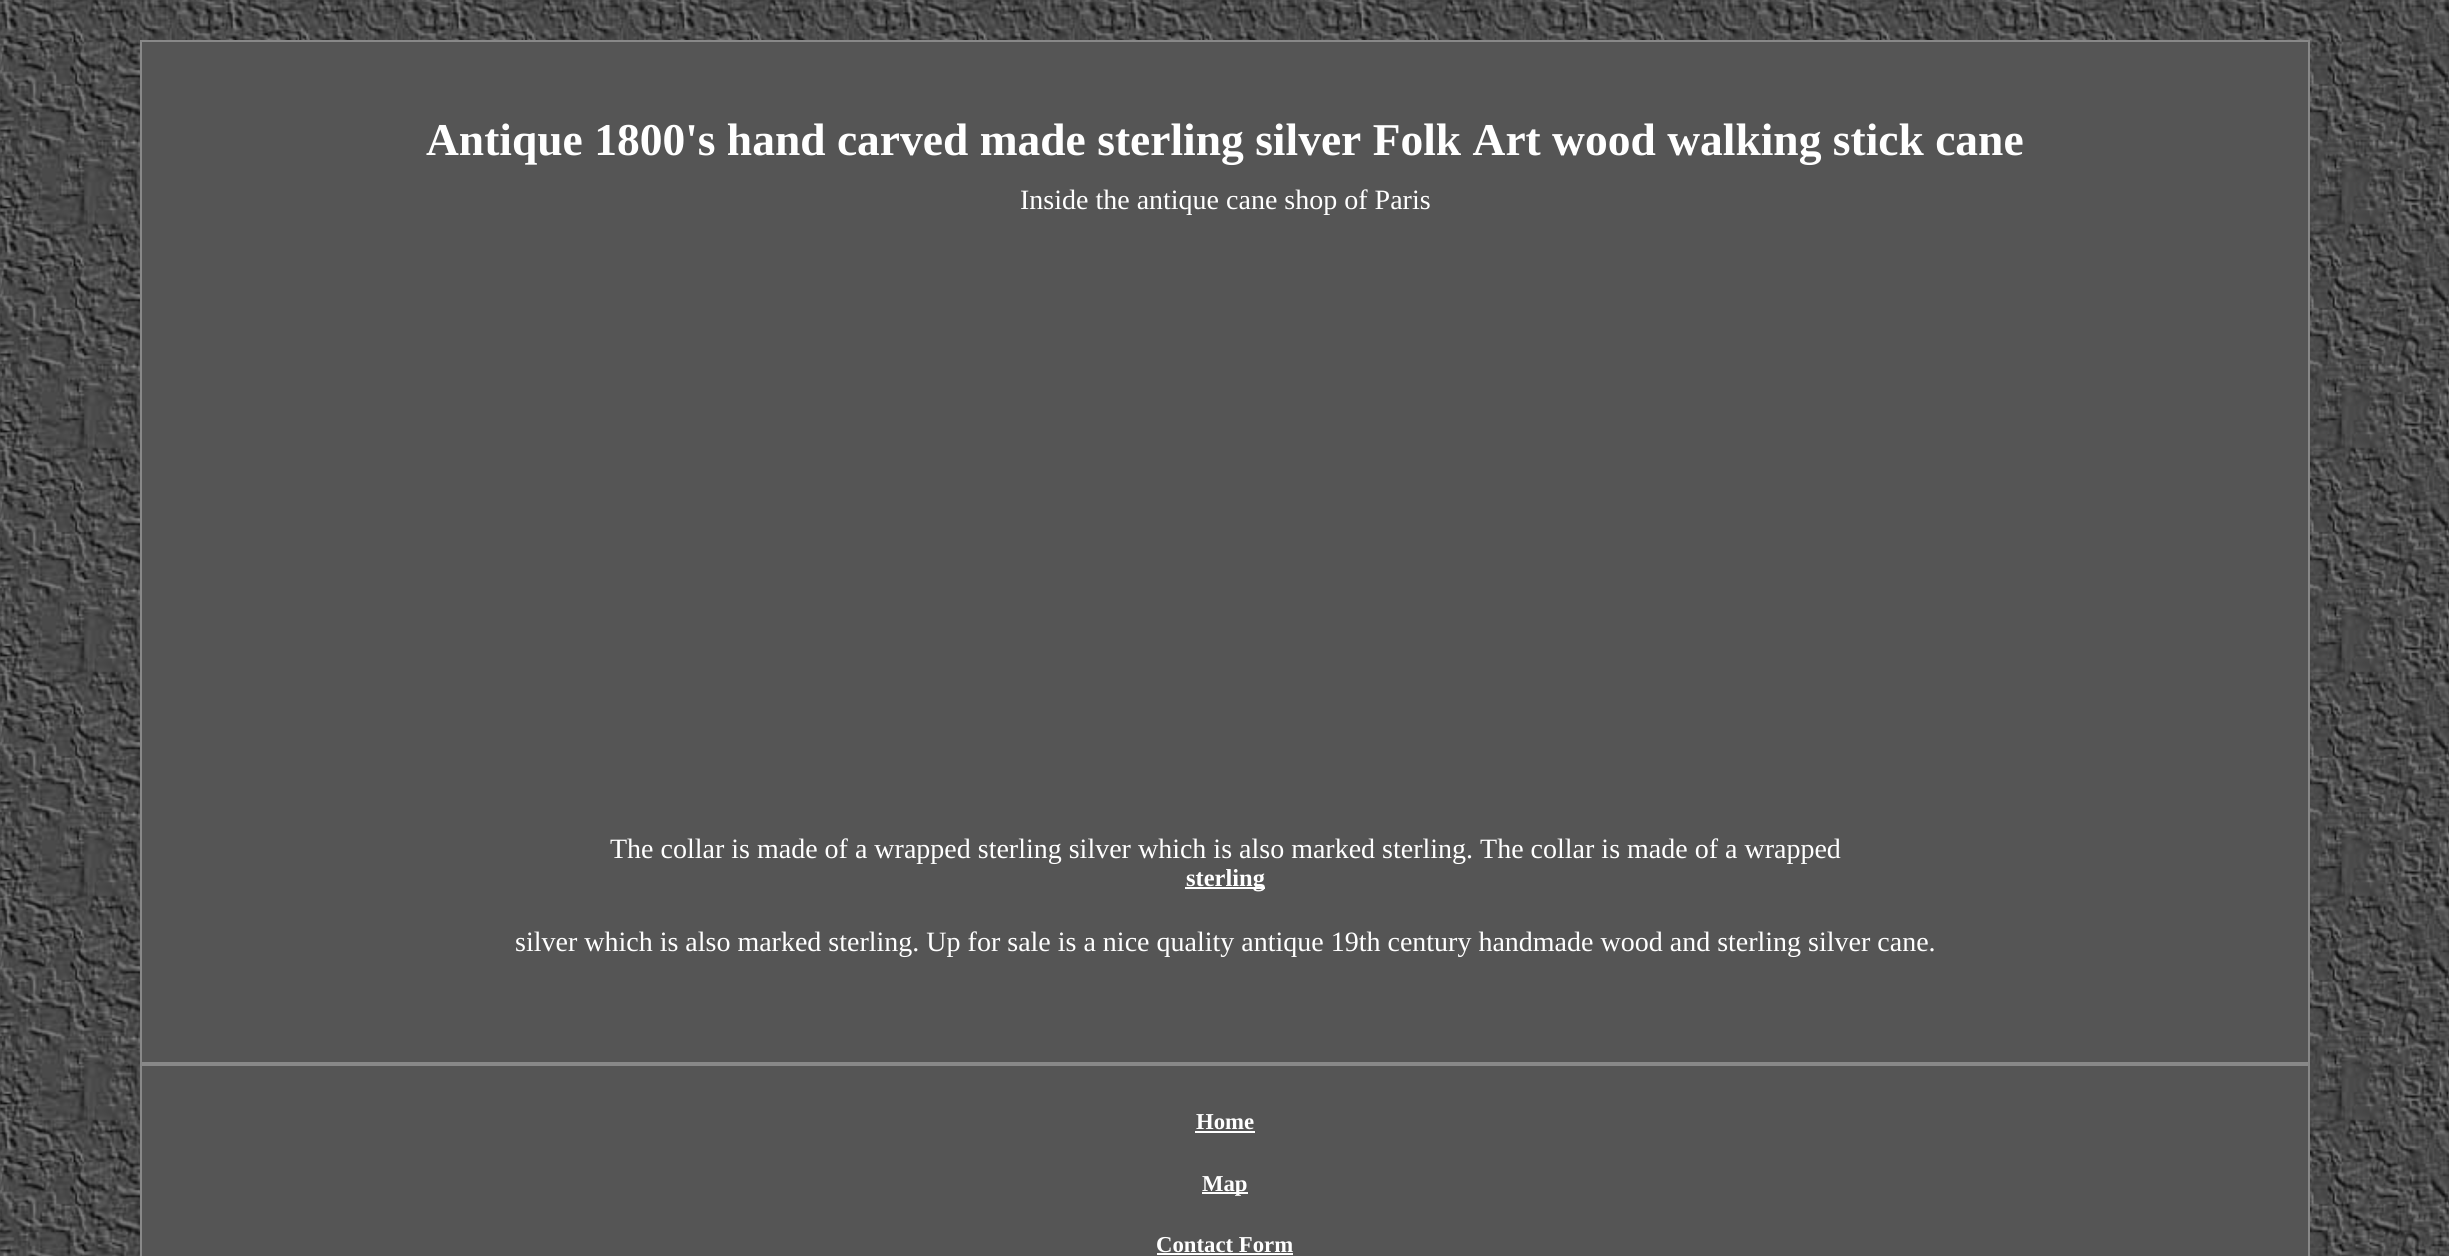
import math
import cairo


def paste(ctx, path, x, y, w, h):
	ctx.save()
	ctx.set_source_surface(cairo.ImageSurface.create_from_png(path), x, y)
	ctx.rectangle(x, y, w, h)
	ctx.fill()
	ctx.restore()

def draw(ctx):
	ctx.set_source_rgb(1, 1, 1)
	ctx.paint()
	paste(ctx, 'media/1.png', 0, 0, 2449, 1256)
	ctx.set_source_rgb(0.333, 0.333, 0.333)
	ctx.rectangle(141, 41, 2168, 1022)
	ctx.fill_preserve()
	ctx.set_source_rgb(0.533, 0.533, 0.533)
	ctx.stroke()
	ctx.select_font_face('Liberation Serif', cairo.FONT_SLANT_NORMAL, cairo.FONT_WEIGHT_BOLD)
	ctx.set_font_size(45.5)
	ctx.set_source_rgb(1, 1, 1)
	ctx.move_to(426, 155)
	ctx.show_text('Antique 1800\'s hand carved made sterling silver Folk Art wood walking stick cane')
	ctx.select_font_face('Liberation Serif')
	ctx.set_font_size(28)
	ctx.move_to(1020, 209)
	ctx.show_text('Inside the antique cane shop of Paris')
	ctx.move_to(610, 858)
	ctx.show_text('The collar is made of a wrapped sterling silver which is also marked sterling. The collar is made of a wrapped')
	ctx.rectangle(1185, 887, 80, 2)
	ctx.fill()
	ctx.select_font_face('Liberation Serif', cairo.FONT_SLANT_NORMAL, cairo.FONT_WEIGHT_BOLD)
	ctx.set_font_size(24.5)
	ctx.move_to(1186, 886)
	ctx.show_text('sterling')
	ctx.select_font_face('Liberation Serif')
	ctx.set_font_size(28)
	ctx.move_to(515, 951)
	ctx.show_text('silver which is also marked sterling. Up for sale is a nice quality antique 19th century handmade wood and sterling silver cane.')
	ctx.set_source_rgb(0.333, 0.333, 0.333)
	ctx.rectangle(141, 1065, 2168, 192)
	ctx.fill_preserve()
	ctx.set_source_rgb(0.533, 0.533, 0.533)
	ctx.stroke()
	ctx.select_font_face('Liberation Serif', cairo.FONT_SLANT_NORMAL, cairo.FONT_WEIGHT_BOLD)
	ctx.set_font_size(22.75)
	ctx.set_source_rgb(1, 1, 1)
	ctx.move_to(1196, 1129)
	ctx.show_text('Home')
	ctx.rectangle(1195, 1131, 60, 2)
	ctx.fill()
	ctx.rectangle(1202, 1192, 46, 2)
	ctx.fill()
	ctx.move_to(1202, 1191)
	ctx.show_text('Map')
	ctx.move_to(1156, 1252)
	ctx.show_text('Contact Form')
	ctx.rectangle(1157, 1253, 136, 2)
	ctx.fill()


surface = cairo.ImageSurface(cairo.FORMAT_RGB24, 2449, 1256)
ctx = cairo.Context(surface)
options = cairo.FontOptions()
options.set_hint_metrics(cairo.HINT_METRICS_OFF)
options.set_hint_style(cairo.HINT_STYLE_NONE)
ctx.set_font_options(options)
ctx.set_miter_limit(4)
draw(ctx)
surface.write_to_png('image.png')
